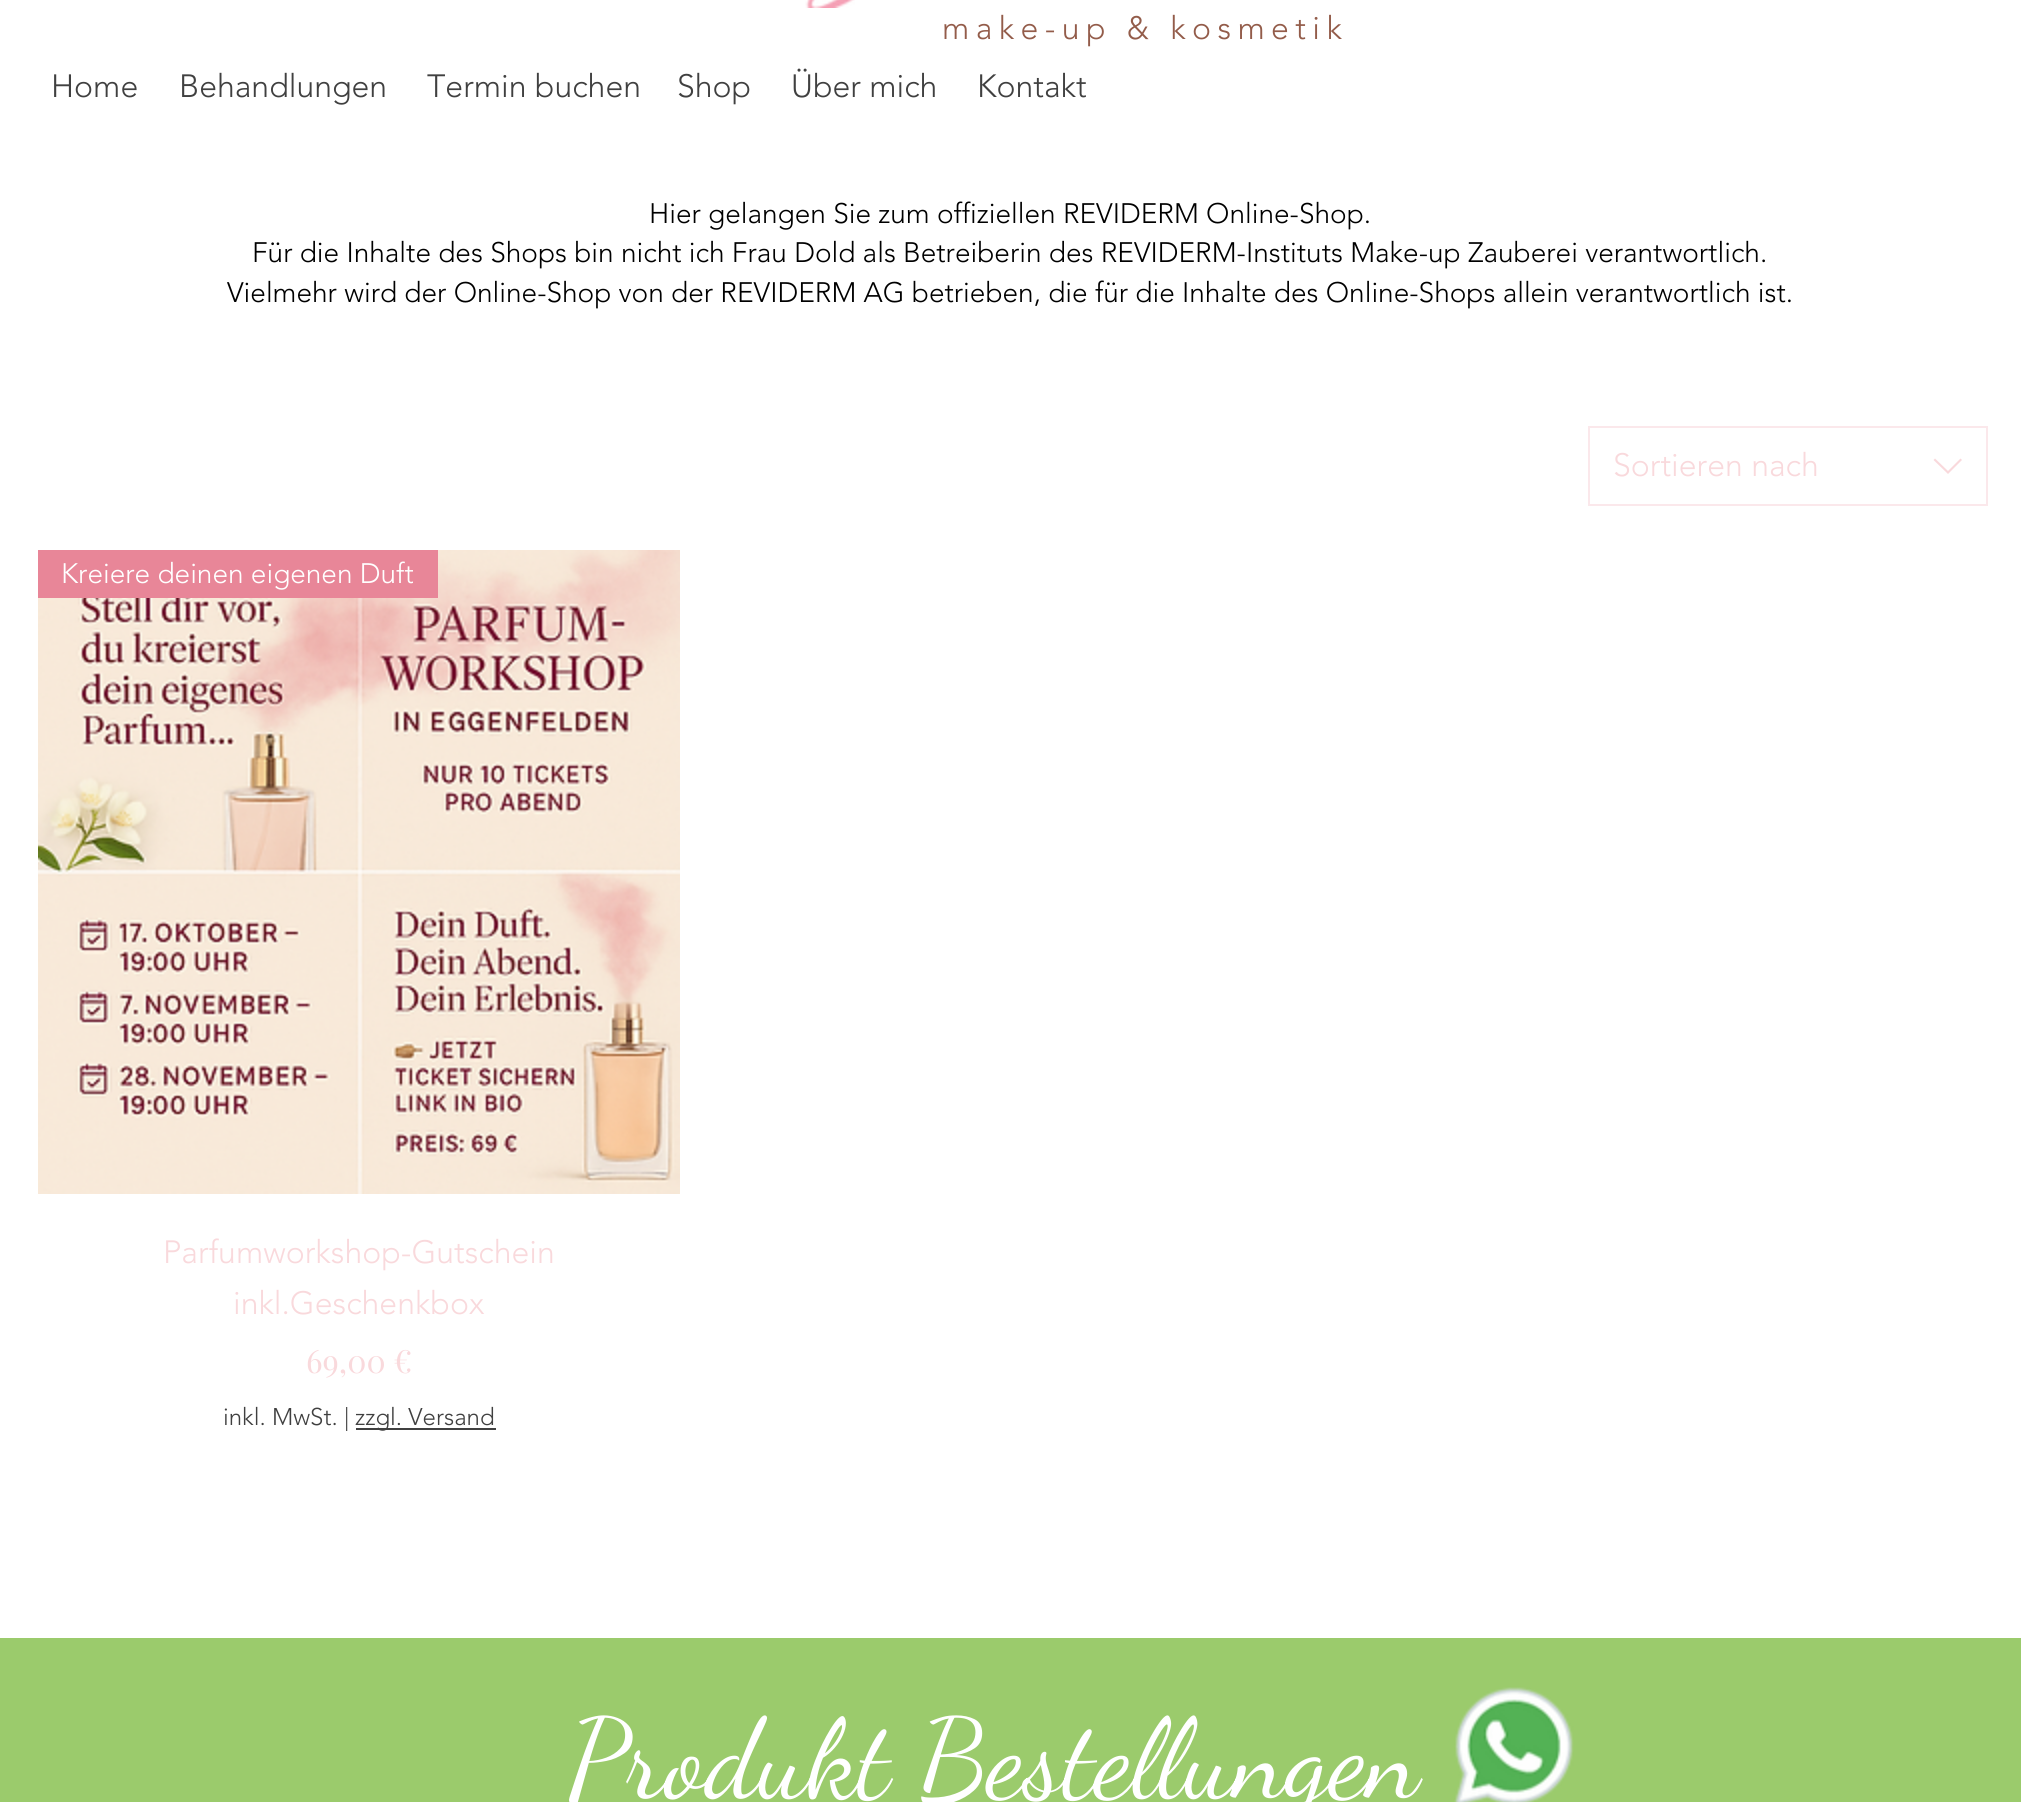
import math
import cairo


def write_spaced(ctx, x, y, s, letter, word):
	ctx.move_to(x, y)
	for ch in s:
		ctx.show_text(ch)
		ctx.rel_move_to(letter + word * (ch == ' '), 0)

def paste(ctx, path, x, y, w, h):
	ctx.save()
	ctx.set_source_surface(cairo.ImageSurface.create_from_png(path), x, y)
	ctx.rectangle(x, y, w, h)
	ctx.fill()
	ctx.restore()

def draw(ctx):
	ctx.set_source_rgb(1, 1, 1)
	ctx.paint()
	paste(ctx, 'media/1.png', 805, 0, 50, 8)
	ctx.select_font_face('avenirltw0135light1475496 Light')
	ctx.set_font_size(32)
	ctx.set_source_rgb(0.576, 0.361, 0.29)
	write_spaced(ctx, 942, 39, 'make-up & kosmetik', 6.4, 0)
	ctx.set_source_rgb(0.251, 0.251, 0.251)
	for x, y, s in [
		(51, 97, 'Home'),
		(179, 97, 'Behandlungen'),
		(427, 97, 'Termin buchen'),
		(677, 97, 'Shop'),
		(791, 97, 'Über mich'),
		(977, 97, 'Kontakt'),
	]:
		ctx.move_to(x, y)
		ctx.show_text(s)
	ctx.set_font_size(28)
	ctx.set_source_rgb(0, 0, 0)
	for x, y, s in [
		(649, 223, 'Hier gelangen Sie zum offiziellen REVIDERM Online-Shop.'),
		(252, 262, 'Für die Inhalte des Shops bin nicht ich Frau Dold als Betreiberin des REVIDERM-Instituts Make-up Zauberei verantwortlich.'),
		(227, 302, 'Vielmehr wird der Online-Shop von der REVIDERM AG betrieben, die für die Inhalte des Online-Shops allein verantwortlich ist.'),
	]:
		ctx.move_to(x, y)
		ctx.show_text(s)
	ctx.rectangle(1589, 427, 398, 78)
	ctx.set_source_rgb(0.984, 0.91, 0.918)
	ctx.stroke()
	ctx.set_font_size(32)
	ctx.set_source_rgb(0.976, 0.851, 0.863)
	ctx.move_to(1613, 476)
	ctx.show_text('Sortieren nach')
	ctx.set_fill_rule(cairo.FILL_RULE_EVEN_ODD)
	ctx.new_path()
	ctx.move_to(1960.5, 458.5)
	ctx.line_to(1962, 460)
	ctx.line_to(1948, 474)
	ctx.line_to(1933.5, 460)
	ctx.line_to(1935, 458.5)
	ctx.line_to(1948, 471)
	ctx.close_path()
	ctx.fill()
	paste(ctx, 'media/2.png', 38, 550, 642, 644)
	ctx.set_source_rgb(0.91, 0.525, 0.596)
	ctx.rectangle(38, 550, 400, 48)
	ctx.fill()
	ctx.set_font_size(28)
	ctx.set_source_rgb(1, 1, 1)
	ctx.move_to(61, 583)
	ctx.show_text('Kreiere deinen eigenen Duft')
	ctx.set_font_size(32)
	ctx.set_source_rgb(0.976, 0.851, 0.863)
	ctx.move_to(163, 1263)
	ctx.show_text('Parfumworkshop-Gutschein')
	ctx.move_to(233, 1314)
	ctx.show_text('inkl.Geschenkbox')
	ctx.select_font_face('Playfair Display')
	ctx.move_to(306, 1373)
	ctx.show_text('69,00 €')
	ctx.select_font_face('avenirltw0135light1475496 Light')
	ctx.set_font_size(24)
	ctx.set_source_rgb(0.251, 0.251, 0.251)
	ctx.move_to(223, 1425)
	ctx.show_text('inkl. MwSt. |')
	ctx.rectangle(356, 1428, 140, 2)
	ctx.fill()
	ctx.move_to(355, 1425)
	ctx.show_text('zzgl. Versand')
	ctx.set_source_rgb(0.608, 0.796, 0.424)
	ctx.rectangle(0, 1638, 2021, 164)
	ctx.fill()
	ctx.select_font_face('Dancing Script')
	ctx.set_font_size(112)
	ctx.set_source_rgb(1, 1, 1)
	ctx.move_to(567, 1796)
	ctx.show_text('Produkt Bestellungen')
	paste(ctx, 'media/3.png', 1454, 1687, 120, 115)


surface = cairo.ImageSurface(cairo.FORMAT_RGB24, 2021, 1802)
ctx = cairo.Context(surface)
options = cairo.FontOptions()
options.set_hint_metrics(cairo.HINT_METRICS_OFF)
options.set_hint_style(cairo.HINT_STYLE_NONE)
ctx.set_font_options(options)
ctx.set_miter_limit(4)
draw(ctx)
surface.write_to_png('image.png')
